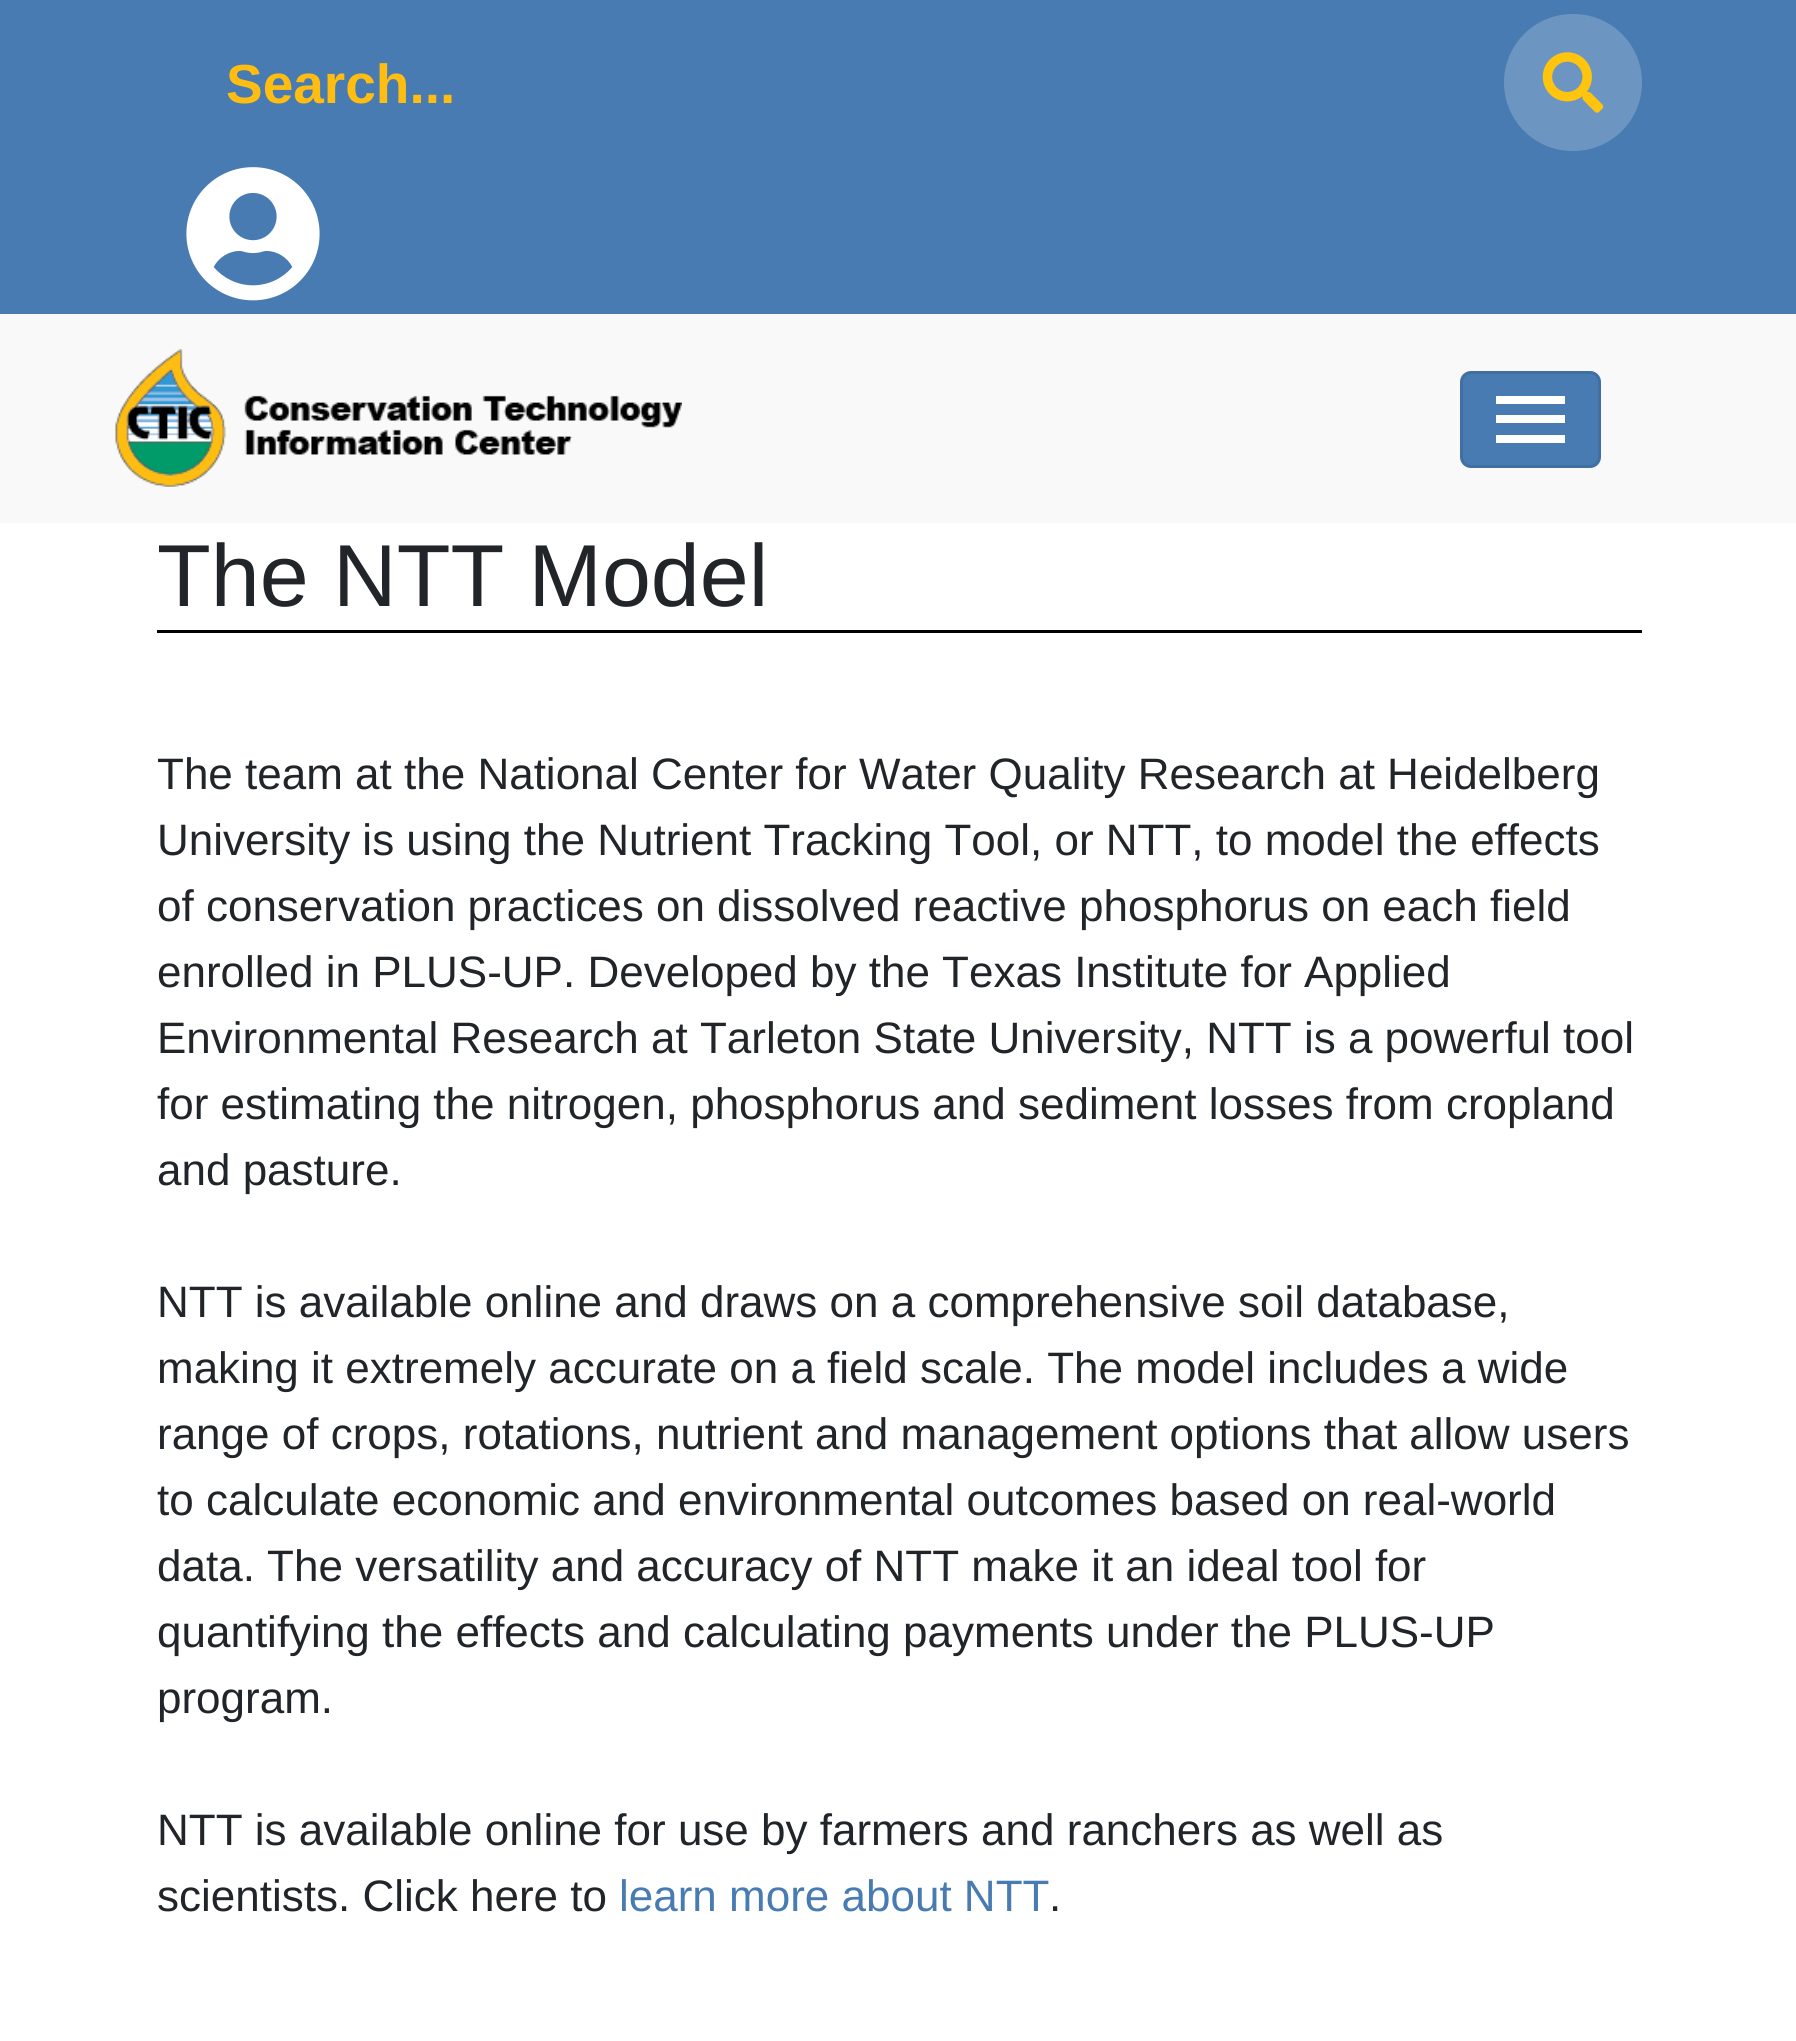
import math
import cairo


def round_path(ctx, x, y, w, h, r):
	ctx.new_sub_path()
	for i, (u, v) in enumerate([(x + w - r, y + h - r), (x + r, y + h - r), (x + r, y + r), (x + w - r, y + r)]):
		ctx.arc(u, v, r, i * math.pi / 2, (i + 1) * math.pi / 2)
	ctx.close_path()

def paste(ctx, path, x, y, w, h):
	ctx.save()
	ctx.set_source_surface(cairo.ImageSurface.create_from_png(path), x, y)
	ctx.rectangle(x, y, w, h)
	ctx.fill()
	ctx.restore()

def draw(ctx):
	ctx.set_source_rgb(1, 1, 1)
	ctx.paint()
	ctx.set_source_rgb(0.282, 0.482, 0.698)
	ctx.rectangle(0, 0, 1796, 314)
	ctx.fill()
	ctx.select_font_face('Liberation Sans', cairo.FONT_SLANT_NORMAL, cairo.FONT_WEIGHT_BOLD)
	ctx.set_font_size(55)
	ctx.set_source_rgb(0.996, 0.741, 0.063)
	ctx.move_to(226, 103)
	ctx.show_text('Search...')
	ctx.set_source_rgb(0.427, 0.584, 0.757)
	round_path(ctx, 1504, 14, 138, 137, 68.5)
	ctx.fill()
	paste(ctx, 'media/1.png', 1542, 52, 62, 61)
	paste(ctx, 'media/2.png', 186, 167, 134, 134)
	ctx.set_source_rgb(0.973, 0.973, 0.973)
	ctx.rectangle(0, 314, 1796, 209)
	ctx.fill()
	paste(ctx, 'media/3.png', 115, 349, 567, 138)
	ctx.set_source_rgb(0.282, 0.482, 0.698)
	round_path(ctx, 1460, 371, 141, 97, 11)
	ctx.fill()
	round_path(ctx, 1461.5, 372.5, 138, 94, 9.5)
	ctx.set_source_rgba(0, 0, 0, 0.1)
	ctx.set_line_width(3)
	ctx.stroke()
	ctx.set_source_rgb(1, 1, 1)
	ctx.rectangle(1496, 396, 69, 8)
	ctx.rectangle(1496, 415, 69, 8)
	ctx.rectangle(1496, 435, 69, 8)
	ctx.fill()
	ctx.set_source_rgb(0, 0, 0)
	ctx.rectangle(157, 630, 1485, 3)
	ctx.fill()
	ctx.select_font_face('Liberation Sans')
	ctx.set_font_size(88)
	ctx.set_source_rgb(0.129, 0.145, 0.161)
	ctx.move_to(157, 606)
	ctx.show_text('The NTT Model')
	ctx.set_font_size(44)
	for x, y, s in [
		(157, 789, 'The team at the National Center for Water Quality Research at Heidelberg'),
		(157, 855, 'University is using the Nutrient Tracking Tool, or NTT, to model the effects'),
		(157, 921, 'of conservation practices on dissolved reactive phosphorus on each field'),
		(157, 987, 'enrolled in PLUS-UP. Developed by the Texas Institute for Applied'),
		(157, 1053, 'Environmental Research at Tarleton State University, NTT is a powerful tool'),
		(157, 1119, 'for estimating the nitrogen, phosphorus and sediment losses from cropland'),
		(157, 1185, 'and pasture.'),
		(157, 1317, 'NTT is available online and draws on a comprehensive soil database,'),
		(157, 1383, 'making it extremely accurate on a field scale. The model includes a wide'),
		(157, 1449, 'range of crops, rotations, nutrient and management options that allow users'),
		(157, 1515, 'to calculate economic and environmental outcomes based on real-world'),
		(157, 1581, 'data. The versatility and accuracy of NTT make it an ideal tool for'),
		(157, 1647, 'quantifying the effects and calculating payments under the PLUS-UP'),
		(157, 1713, 'program.'),
		(157, 1845, 'NTT is available online for use by farmers and ranchers as well as'),
		(157, 1911, 'scientists. Click here to'),
	]:
		ctx.move_to(x, y)
		ctx.show_text(s)
	ctx.set_source_rgb(0.282, 0.482, 0.698)
	ctx.move_to(619, 1911)
	ctx.show_text('learn more about NTT')
	ctx.set_source_rgb(0.129, 0.145, 0.161)
	ctx.move_to(1049, 1911)
	ctx.show_text('.')


surface = cairo.ImageSurface(cairo.FORMAT_RGB24, 1796, 2041)
ctx = cairo.Context(surface)
options = cairo.FontOptions()
options.set_hint_metrics(cairo.HINT_METRICS_OFF)
options.set_hint_style(cairo.HINT_STYLE_NONE)
ctx.set_font_options(options)
ctx.set_miter_limit(4)
draw(ctx)
surface.write_to_png('image.png')
